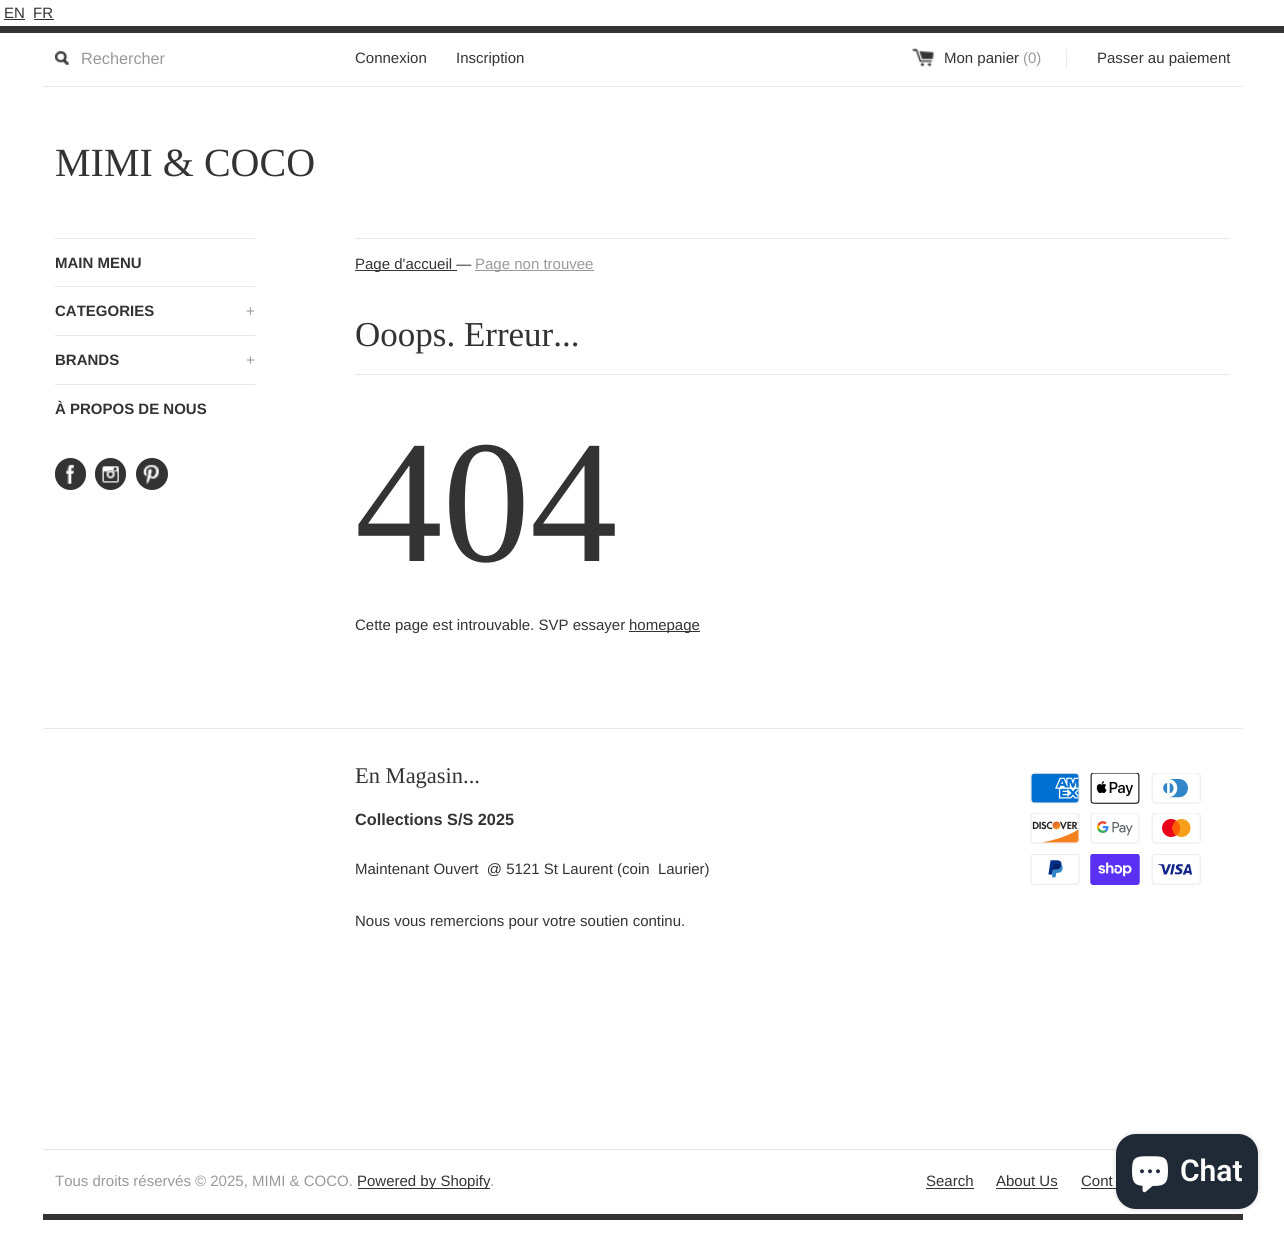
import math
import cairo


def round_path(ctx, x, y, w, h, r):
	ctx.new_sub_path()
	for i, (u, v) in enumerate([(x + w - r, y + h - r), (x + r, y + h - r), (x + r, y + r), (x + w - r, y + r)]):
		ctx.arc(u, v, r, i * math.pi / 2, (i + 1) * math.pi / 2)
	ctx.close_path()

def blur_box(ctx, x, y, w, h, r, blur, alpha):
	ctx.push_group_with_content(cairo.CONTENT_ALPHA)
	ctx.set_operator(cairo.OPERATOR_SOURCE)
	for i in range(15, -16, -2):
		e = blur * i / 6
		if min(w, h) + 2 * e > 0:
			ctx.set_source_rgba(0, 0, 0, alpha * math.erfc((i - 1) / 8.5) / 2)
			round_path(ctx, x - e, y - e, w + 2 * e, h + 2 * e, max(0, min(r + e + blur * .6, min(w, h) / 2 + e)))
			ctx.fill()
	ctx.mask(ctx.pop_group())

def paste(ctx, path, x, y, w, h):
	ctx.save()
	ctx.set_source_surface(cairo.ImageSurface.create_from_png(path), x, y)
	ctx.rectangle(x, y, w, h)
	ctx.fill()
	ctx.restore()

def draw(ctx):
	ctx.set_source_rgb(1, 1, 1)
	ctx.paint()
	ctx.select_font_face('Liberation Sans')
	ctx.set_font_size(15)
	ctx.set_source_rgb(0.2, 0.2, 0.2)
	ctx.move_to(4, 18)
	ctx.show_text('EN')
	ctx.rectangle(4, 19, 21, 1)
	ctx.fill()
	ctx.move_to(33, 18)
	ctx.show_text('FR')
	ctx.rectangle(34, 19, 20, 1)
	ctx.rectangle(0, 26, 1284, 7)
	ctx.fill()
	ctx.set_source_rgb(0.91, 0.91, 0.91)
	ctx.rectangle(43, 86, 1200, 1)
	ctx.fill()
	paste(ctx, 'media/1.png', 55, 51, 14, 14)
	ctx.set_font_size(16.25)
	ctx.set_source_rgb(0.6, 0.6, 0.6)
	ctx.move_to(81, 64)
	ctx.show_text('Rechercher')
	ctx.set_font_size(15)
	ctx.set_source_rgb(0.2, 0.2, 0.2)
	ctx.move_to(355, 63)
	ctx.show_text('Connexion')
	ctx.move_to(456, 63)
	ctx.show_text('Inscription')
	paste(ctx, 'media/2.png', 912, 48, 22, 19)
	ctx.move_to(944, 63)
	ctx.show_text('Mon panier')
	ctx.set_source_rgb(0.6, 0.6, 0.6)
	ctx.move_to(1023, 63)
	ctx.show_text('(0)')
	ctx.set_source_rgb(0.91, 0.91, 0.91)
	ctx.rectangle(1066, 49, 1, 19)
	ctx.fill()
	ctx.set_source_rgb(0.2, 0.2, 0.2)
	ctx.move_to(1097, 63)
	ctx.show_text('Passer au paiement')
	ctx.select_font_face('Liberation Serif')
	ctx.set_font_size(40)
	ctx.move_to(55, 176)
	ctx.show_text('MIMI & COCO')
	ctx.set_source_rgb(0.91, 0.91, 0.91)
	ctx.rectangle(55, 238, 200, 1)
	ctx.fill()
	ctx.select_font_face('Liberation Sans', cairo.FONT_SLANT_NORMAL, cairo.FONT_WEIGHT_BOLD)
	ctx.set_font_size(15)
	ctx.set_source_rgb(0.2, 0.2, 0.2)
	ctx.move_to(55, 268)
	ctx.show_text('MAIN MENU')
	ctx.set_source_rgb(0.91, 0.91, 0.91)
	ctx.rectangle(55, 286, 200, 1)
	ctx.fill()
	ctx.set_source_rgb(0.2, 0.2, 0.2)
	ctx.move_to(55, 316)
	ctx.show_text('CATEGORIES')
	ctx.select_font_face('Liberation Sans')
	ctx.set_source_rgb(0.6, 0.6, 0.6)
	ctx.move_to(246, 316)
	ctx.show_text('+')
	ctx.set_source_rgb(0.91, 0.91, 0.91)
	ctx.rectangle(55, 335, 200, 1)
	ctx.fill()
	ctx.select_font_face('Liberation Sans', cairo.FONT_SLANT_NORMAL, cairo.FONT_WEIGHT_BOLD)
	ctx.set_source_rgb(0.2, 0.2, 0.2)
	ctx.move_to(55, 365)
	ctx.show_text('BRANDS')
	ctx.select_font_face('Liberation Sans')
	ctx.set_source_rgb(0.6, 0.6, 0.6)
	ctx.move_to(246, 365)
	ctx.show_text('+')
	ctx.set_source_rgb(0.91, 0.91, 0.91)
	ctx.rectangle(55, 384, 200, 1)
	ctx.fill()
	ctx.select_font_face('Liberation Sans', cairo.FONT_SLANT_NORMAL, cairo.FONT_WEIGHT_BOLD)
	ctx.set_source_rgb(0.2, 0.2, 0.2)
	ctx.move_to(55, 414)
	ctx.show_text('À PROPOS DE NOUS')
	round_path(ctx, 55, 458, 31, 32, 15.5)
	ctx.fill()
	paste(ctx, 'media/3.png', 66, 464, 8, 20)
	round_path(ctx, 95, 458, 31, 32, 15.5)
	ctx.fill()
	paste(ctx, 'media/4.png', 102, 466, 17, 17)
	ctx.arc(152, 474, 16, 0, 2 * math.pi)
	ctx.fill()
	paste(ctx, 'media/5.png', 143, 464, 16, 20)
	ctx.set_source_rgb(0.91, 0.91, 0.91)
	ctx.rectangle(355, 238, 875, 1)
	ctx.fill()
	ctx.set_source_rgb(0.2, 0.2, 0.2)
	ctx.rectangle(355, 270, 102, 1)
	ctx.fill()
	ctx.select_font_face('Liberation Sans')
	ctx.move_to(355, 269)
	ctx.show_text('Page d\'accueil —')
	ctx.set_source_rgb(0.6, 0.6, 0.6)
	ctx.rectangle(475, 270, 119, 1)
	ctx.fill()
	ctx.move_to(475, 269)
	ctx.show_text('Page non trouvee')
	ctx.select_font_face('Liberation Serif')
	ctx.set_font_size(35)
	ctx.set_source_rgb(0.2, 0.2, 0.2)
	ctx.move_to(355, 346)
	ctx.show_text('Ooops. Erreur...')
	ctx.set_source_rgb(0.91, 0.91, 0.91)
	ctx.rectangle(355, 374, 875, 1)
	ctx.fill()
	ctx.set_font_size(175)
	ctx.set_source_rgb(0.2, 0.2, 0.2)
	ctx.move_to(355, 561)
	ctx.show_text('404')
	ctx.select_font_face('Liberation Sans')
	ctx.set_font_size(15)
	ctx.move_to(355, 630)
	ctx.show_text('Cette page est introuvable. SVP essayer')
	ctx.rectangle(629, 631, 71, 1)
	ctx.fill()
	ctx.move_to(629, 630)
	ctx.show_text('homepage')
	ctx.rectangle(43, 1214, 1200, 6)
	ctx.fill()
	ctx.set_source_rgb(0.91, 0.91, 0.91)
	ctx.rectangle(43, 728, 1200, 1)
	ctx.fill()
	ctx.select_font_face('Liberation Serif')
	ctx.set_font_size(22.5)
	ctx.set_source_rgb(0.2, 0.2, 0.2)
	ctx.move_to(355, 783)
	ctx.show_text('En Magasin...')
	ctx.select_font_face('Liberation Sans', cairo.FONT_SLANT_NORMAL, cairo.FONT_WEIGHT_BOLD)
	ctx.set_font_size(16.25)
	ctx.move_to(355, 825)
	ctx.show_text('Collections S/S 2025')
	ctx.select_font_face('Liberation Sans')
	ctx.set_font_size(15)
	ctx.move_to(355, 874)
	ctx.show_text('Maintenant Ouvert  @ 5121 St Laurent (coin  Laurier)')
	ctx.move_to(355, 926)
	ctx.show_text('Nous vous remercions pour votre soutien continu.')
	paste(ctx, 'media/6.png', 1030, 773, 50, 31)
	paste(ctx, 'media/7.png', 1090, 773, 50, 31)
	paste(ctx, 'media/8.png', 1151, 773, 50, 31)
	paste(ctx, 'media/9.png', 1030, 813, 50, 31)
	paste(ctx, 'media/10.png', 1090, 813, 50, 31)
	paste(ctx, 'media/11.png', 1151, 813, 50, 31)
	paste(ctx, 'media/12.png', 1030, 854, 50, 31)
	paste(ctx, 'media/13.png', 1090, 854, 50, 31)
	paste(ctx, 'media/14.png', 1151, 854, 50, 31)
	ctx.set_source_rgb(0.91, 0.91, 0.91)
	ctx.rectangle(43, 1149, 1074, 1)
	ctx.fill()
	ctx.set_source_rgb(0.6, 0.6, 0.6)
	ctx.move_to(55, 1186)
	ctx.show_text('Tous droits réservés © 2025, MIMI & COCO.')
	ctx.set_source_rgb(0.2, 0.2, 0.2)
	ctx.rectangle(358, 1188, 132, 1)
	ctx.fill()
	ctx.move_to(357, 1186)
	ctx.show_text('Powered by Shopify')
	ctx.set_source_rgb(0.6, 0.6, 0.6)
	ctx.move_to(490, 1186)
	ctx.show_text('.')
	ctx.set_source_rgb(0.2, 0.2, 0.2)
	ctx.move_to(926, 1186)
	ctx.show_text('Search')
	ctx.rectangle(926, 1188, 48, 1)
	ctx.fill()
	ctx.move_to(996, 1186)
	ctx.show_text('About Us')
	ctx.rectangle(996, 1188, 62, 1)
	ctx.fill()
	ctx.move_to(1081, 1186)
	ctx.show_text('Cont')
	ctx.rectangle(1081, 1188, 35, 1)
	ctx.fill()
	ctx.set_source_rgb(0, 0, 0)
	blur_box(ctx, 1116, 1134, 142, 75, 20, 3, 0.15)
	ctx.set_source_rgb(0.125, 0.165, 0.212)
	round_path(ctx, 1116, 1134, 142, 75, 20)
	ctx.fill()
	paste(ctx, 'media/15.png', 1132, 1156, 36, 37)
	ctx.select_font_face('Roboto SemiBold')
	ctx.set_font_size(30)
	ctx.set_source_rgb(1, 1, 1)
	ctx.move_to(1180, 1181)
	ctx.show_text('Chat')


surface = cairo.ImageSurface(cairo.FORMAT_RGB24, 1284, 1235)
ctx = cairo.Context(surface)
options = cairo.FontOptions()
options.set_hint_metrics(cairo.HINT_METRICS_OFF)
options.set_hint_style(cairo.HINT_STYLE_NONE)
ctx.set_font_options(options)
ctx.set_miter_limit(4)
draw(ctx)
surface.write_to_png('image.png')
